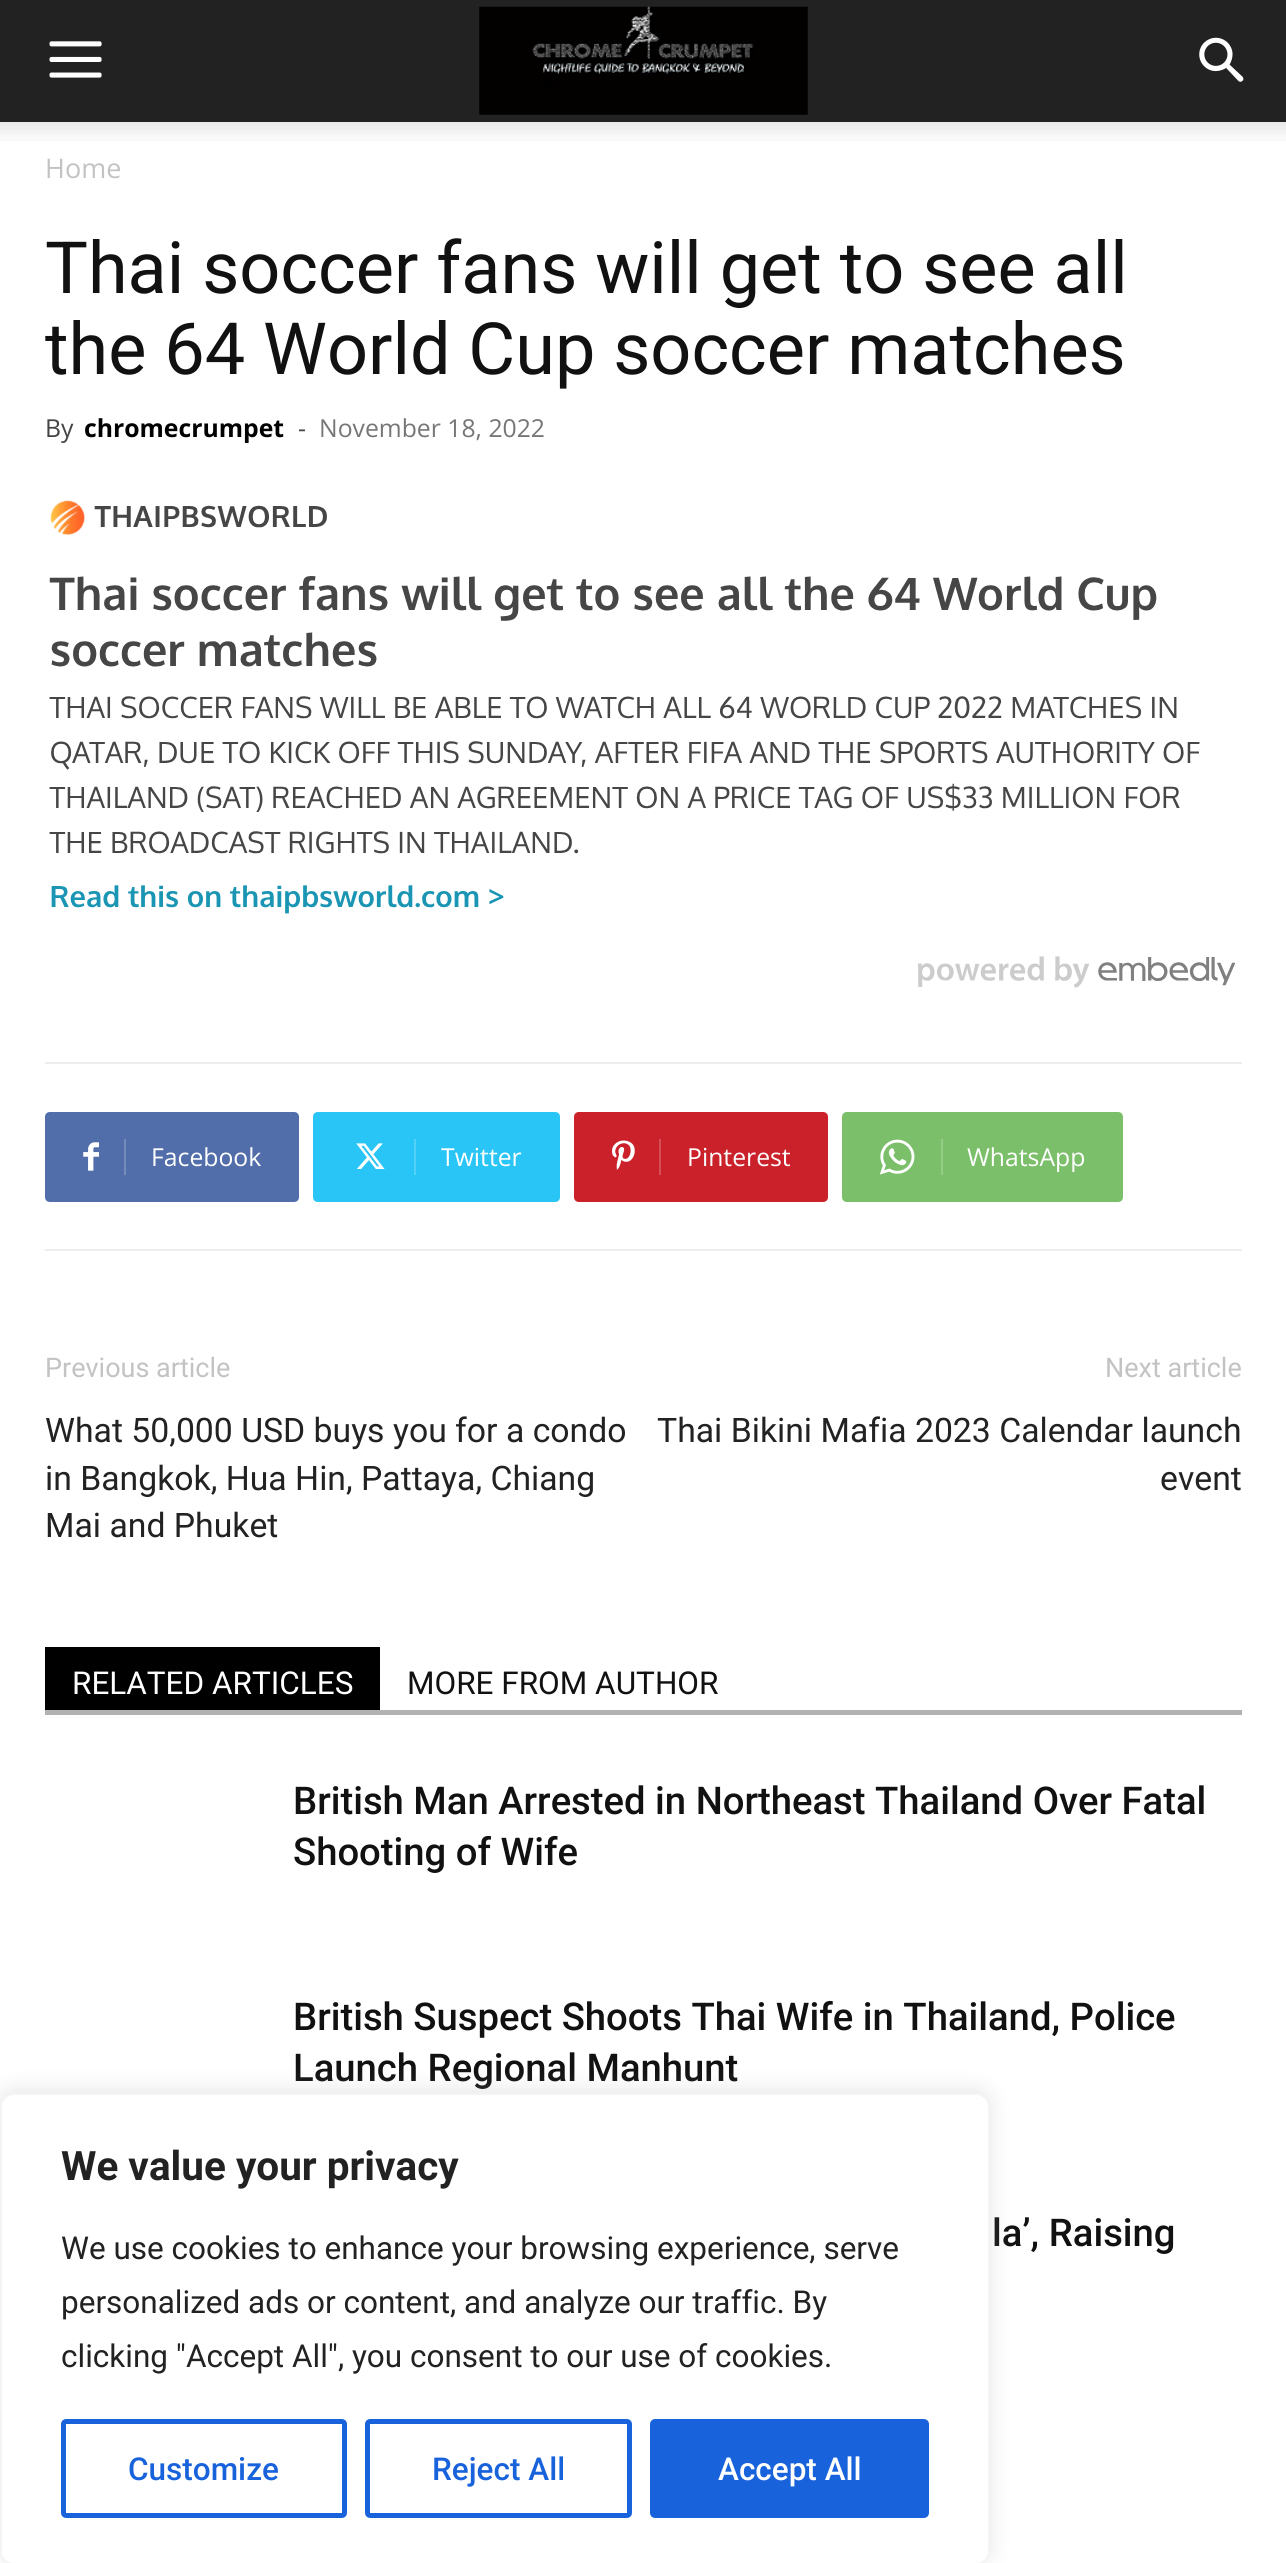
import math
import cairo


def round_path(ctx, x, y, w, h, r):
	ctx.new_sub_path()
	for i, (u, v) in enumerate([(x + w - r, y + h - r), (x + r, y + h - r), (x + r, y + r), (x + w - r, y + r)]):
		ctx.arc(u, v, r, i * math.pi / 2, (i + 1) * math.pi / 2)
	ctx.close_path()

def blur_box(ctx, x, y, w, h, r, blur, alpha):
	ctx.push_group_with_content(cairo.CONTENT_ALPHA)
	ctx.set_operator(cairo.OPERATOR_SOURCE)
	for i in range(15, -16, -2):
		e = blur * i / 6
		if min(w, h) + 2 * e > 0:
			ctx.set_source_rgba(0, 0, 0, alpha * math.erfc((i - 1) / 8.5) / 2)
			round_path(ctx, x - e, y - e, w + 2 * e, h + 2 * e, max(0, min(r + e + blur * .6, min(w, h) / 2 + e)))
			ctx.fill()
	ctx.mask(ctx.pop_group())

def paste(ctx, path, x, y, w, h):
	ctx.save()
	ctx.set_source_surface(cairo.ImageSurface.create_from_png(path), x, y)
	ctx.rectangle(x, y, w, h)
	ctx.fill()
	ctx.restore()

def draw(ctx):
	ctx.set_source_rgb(1, 1, 1)
	ctx.paint()
	ctx.set_source_rgb(0.133, 0.133, 0.133)
	ctx.rectangle(0, 0, 1286, 122)
	ctx.fill()
	paste(ctx, 'media/1.png', 49, 41, 53, 37)
	paste(ctx, 'media/2.png', 479, 6, 329, 109)
	paste(ctx, 'media/3.png', 1199, 37, 45, 45)
	paste(ctx, 'media/4.png', 0, 122, 1286, 19)
	ctx.select_font_face('Open Sans')
	ctx.set_font_size(27)
	ctx.set_source_rgb(0.765, 0.765, 0.765)
	ctx.move_to(45, 178)
	ctx.show_text('Home')
	ctx.select_font_face('Roboto')
	ctx.set_font_size(72)
	ctx.set_source_rgb(0.067, 0.067, 0.067)
	ctx.move_to(45, 293)
	ctx.show_text('Thai soccer fans will get to see all')
	ctx.move_to(45, 374)
	ctx.show_text('the 64 World Cup soccer matches')
	ctx.select_font_face('Open Sans')
	ctx.set_font_size(24.75)
	ctx.set_source_rgb(0.267, 0.267, 0.267)
	ctx.move_to(45, 437)
	ctx.show_text('By')
	ctx.select_font_face('Open Sans', cairo.FONT_SLANT_NORMAL, cairo.FONT_WEIGHT_BOLD)
	ctx.set_source_rgb(0, 0, 0)
	ctx.move_to(84, 437)
	ctx.show_text('chromecrumpet')
	ctx.select_font_face('Open Sans')
	ctx.set_source_rgb(0.267, 0.267, 0.267)
	ctx.move_to(298, 437)
	ctx.show_text('-')
	ctx.set_source_rgb(0.463, 0.463, 0.463)
	ctx.move_to(319, 437)
	ctx.show_text('November 18, 2022')
	paste(ctx, 'media/5.png', 49, 500, 1186, 488)
	ctx.set_source_rgb(0.929, 0.929, 0.929)
	ctx.rectangle(45, 1062, 1197, 2)
	ctx.fill()
	ctx.rectangle(45, 1249, 1197, 2)
	ctx.fill()
	ctx.set_source_rgb(0.318, 0.431, 0.671)
	ctx.new_path()
	ctx.move_to(124, 1112)
	ctx.line_to(294, 1112)
	ctx.curve_to(297, 1112, 299, 1114, 299, 1117)
	ctx.line_to(299, 1197)
	ctx.curve_to(299, 1200, 297, 1202, 294, 1202)
	ctx.line_to(124, 1202)
	ctx.close_path()
	ctx.fill()
	ctx.new_path()
	ctx.move_to(50, 1112)
	ctx.line_to(137, 1112)
	ctx.line_to(137, 1202)
	ctx.line_to(50, 1202)
	ctx.curve_to(47, 1202, 45, 1200, 45, 1197)
	ctx.line_to(45, 1117)
	ctx.curve_to(45, 1114, 47, 1112, 50, 1112)
	ctx.close_path()
	ctx.fill()
	paste(ctx, 'media/6.png', 83, 1142, 16, 29)
	ctx.set_source_rgb(0.455, 0.545, 0.737)
	ctx.rectangle(124, 1139, 2, 36)
	ctx.fill()
	ctx.set_source_rgb(1, 1, 1)
	ctx.move_to(151, 1166)
	ctx.show_text('Facebook')
	ctx.set_source_rgb(0.161, 0.773, 0.965)
	ctx.new_path()
	ctx.move_to(414, 1112)
	ctx.line_to(555, 1112)
	ctx.curve_to(558, 1112, 560, 1114, 560, 1117)
	ctx.line_to(560, 1197)
	ctx.curve_to(560, 1200, 558, 1202, 555, 1202)
	ctx.line_to(414, 1202)
	ctx.close_path()
	ctx.fill()
	ctx.new_path()
	ctx.move_to(318, 1112)
	ctx.line_to(428, 1112)
	ctx.line_to(428, 1202)
	ctx.line_to(318, 1202)
	ctx.curve_to(315, 1202, 313, 1200, 313, 1197)
	ctx.line_to(313, 1117)
	ctx.curve_to(313, 1114, 315, 1112, 318, 1112)
	ctx.close_path()
	ctx.fill()
	paste(ctx, 'media/7.png', 356, 1143, 29, 26)
	ctx.set_source_rgb(0.329, 0.82, 0.973)
	ctx.rectangle(414, 1139, 2, 36)
	ctx.fill()
	ctx.set_source_rgb(1, 1, 1)
	ctx.move_to(441, 1166)
	ctx.show_text('Twitter')
	ctx.set_source_rgb(0.792, 0.129, 0.165)
	ctx.new_path()
	ctx.move_to(659, 1112)
	ctx.line_to(823, 1112)
	ctx.curve_to(826, 1112, 828, 1114, 828, 1117)
	ctx.line_to(828, 1197)
	ctx.curve_to(828, 1200, 826, 1202, 823, 1202)
	ctx.line_to(659, 1202)
	ctx.close_path()
	ctx.fill()
	ctx.new_path()
	ctx.move_to(579, 1112)
	ctx.line_to(673, 1112)
	ctx.line_to(673, 1202)
	ctx.line_to(579, 1202)
	ctx.curve_to(576, 1202, 574, 1200, 574, 1197)
	ctx.line_to(574, 1117)
	ctx.curve_to(574, 1114, 576, 1112, 579, 1112)
	ctx.close_path()
	ctx.fill()
	paste(ctx, 'media/8.png', 612, 1140, 23, 30)
	ctx.set_source_rgb(0.835, 0.302, 0.333)
	ctx.rectangle(659, 1139, 2, 36)
	ctx.fill()
	ctx.set_source_rgb(1, 1, 1)
	ctx.move_to(687, 1166)
	ctx.show_text('Pinterest')
	ctx.set_source_rgb(0.482, 0.749, 0.416)
	ctx.new_path()
	ctx.move_to(941, 1112)
	ctx.line_to(1118, 1112)
	ctx.curve_to(1121, 1112, 1123, 1114, 1123, 1117)
	ctx.line_to(1123, 1197)
	ctx.curve_to(1123, 1200, 1121, 1202, 1118, 1202)
	ctx.line_to(941, 1202)
	ctx.close_path()
	ctx.fill()
	ctx.new_path()
	ctx.move_to(847, 1112)
	ctx.line_to(954, 1112)
	ctx.line_to(954, 1202)
	ctx.line_to(847, 1202)
	ctx.curve_to(844, 1202, 842, 1200, 842, 1197)
	ctx.line_to(842, 1117)
	ctx.curve_to(842, 1114, 844, 1112, 847, 1112)
	ctx.close_path()
	ctx.fill()
	paste(ctx, 'media/9.png', 879, 1139, 36, 36)
	ctx.set_source_rgb(0.584, 0.8, 0.533)
	ctx.rectangle(941, 1139, 2, 36)
	ctx.fill()
	ctx.set_source_rgb(1, 1, 1)
	ctx.move_to(967, 1166)
	ctx.show_text('WhatsApp')
	ctx.select_font_face('Roboto')
	ctx.set_font_size(27)
	ctx.set_source_rgb(0.765, 0.765, 0.765)
	ctx.move_to(45, 1377)
	ctx.show_text('Previous article')
	ctx.set_font_size(33.75)
	ctx.set_source_rgb(0.133, 0.133, 0.133)
	for x, y, s in [
		(45, 1442, 'What 50,000 USD buys you for a condo'),
		(45, 1490, 'in Bangkok, Hua Hin, Pattaya, Chiang'),
		(45, 1537, 'Mai and Phuket'),
	]:
		ctx.move_to(x, y)
		ctx.show_text(s)
	ctx.set_font_size(27)
	ctx.set_source_rgb(0.765, 0.765, 0.765)
	ctx.move_to(1105, 1377)
	ctx.show_text('Next article')
	ctx.set_font_size(33.75)
	ctx.set_source_rgb(0.133, 0.133, 0.133)
	ctx.move_to(657, 1442)
	ctx.show_text('Thai Bikini Mafia 2023 Calendar launch')
	ctx.move_to(1160, 1490)
	ctx.show_text('event')
	ctx.set_source_rgb(0.698, 0.698, 0.698)
	ctx.rectangle(45, 1710, 1197, 5)
	ctx.fill()
	ctx.set_source_rgb(0, 0, 0)
	ctx.rectangle(45, 1647, 335, 63)
	ctx.fill()
	ctx.set_font_size(31.5)
	ctx.set_source_rgb(1, 1, 1)
	ctx.move_to(72, 1694)
	ctx.show_text('RELATED ARTICLES')
	ctx.set_source_rgb(0.067, 0.067, 0.067)
	ctx.move_to(407, 1694)
	ctx.show_text('MORE FROM AUTHOR')
	ctx.select_font_face('Roboto Medium')
	ctx.set_font_size(38.25)
	for x, y, s in [
		(293, 1814, 'British Man Arrested in Northeast Thailand Over Fatal'),
		(293, 1865, 'Shooting of Wife'),
		(293, 2030, 'British Suspect Shoots Thai Wife in Thailand, Police'),
		(293, 2081, 'Launch Regional Manhunt'),
		(992, 2246, 'la’, Raising'),
	]:
		ctx.move_to(x, y)
		ctx.show_text(s)
	ctx.set_source_rgb(0.675, 0.671, 0.671)
	blur_box(ctx, 0, 2090, 990, 473, 14, 11, 0.3)
	ctx.set_source_rgb(1, 1, 1)
	round_path(ctx, 1, 2094, 988, 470, 13)
	ctx.fill_preserve()
	ctx.set_source_rgb(0.957, 0.957, 0.957)
	ctx.stroke()
	ctx.select_font_face('Roboto', cairo.FONT_SLANT_NORMAL, cairo.FONT_WEIGHT_BOLD)
	ctx.set_font_size(40.5)
	ctx.set_source_rgb(0.133, 0.133, 0.133)
	ctx.move_to(61, 2180)
	ctx.show_text('We value your privacy')
	ctx.select_font_face('Roboto')
	ctx.set_font_size(31.5)
	for x, y, s in [
		(61, 2259, 'We use cookies to enhance your browsing experience, serve'),
		(61, 2313, 'personalized ads or content, and analyze our traffic. By'),
		(61, 2367, 'clicking "Accept All", you consent to our use of cookies.'),
	]:
		ctx.move_to(x, y)
		ctx.show_text(s)
	round_path(ctx, 63.5, 2421.5, 281, 94, 2.5)
	ctx.set_source_rgb(0.094, 0.388, 0.863)
	ctx.set_line_width(5)
	ctx.stroke()
	ctx.select_font_face('Roboto Medium')
	ctx.move_to(128, 2480)
	ctx.show_text('Customize')
	round_path(ctx, 367.5, 2421.5, 262, 94, 2.5)
	ctx.stroke()
	ctx.move_to(432, 2480)
	ctx.show_text('Reject All')
	round_path(ctx, 652.5, 2421.5, 274, 94, 2.5)
	ctx.fill_preserve()
	ctx.stroke()
	ctx.set_source_rgb(1, 1, 1)
	ctx.move_to(718, 2480)
	ctx.show_text('Accept All')


surface = cairo.ImageSurface(cairo.FORMAT_RGB24, 1286, 2563)
ctx = cairo.Context(surface)
options = cairo.FontOptions()
options.set_hint_metrics(cairo.HINT_METRICS_OFF)
options.set_hint_style(cairo.HINT_STYLE_NONE)
ctx.set_font_options(options)
ctx.set_miter_limit(4)
draw(ctx)
surface.write_to_png('image.png')
